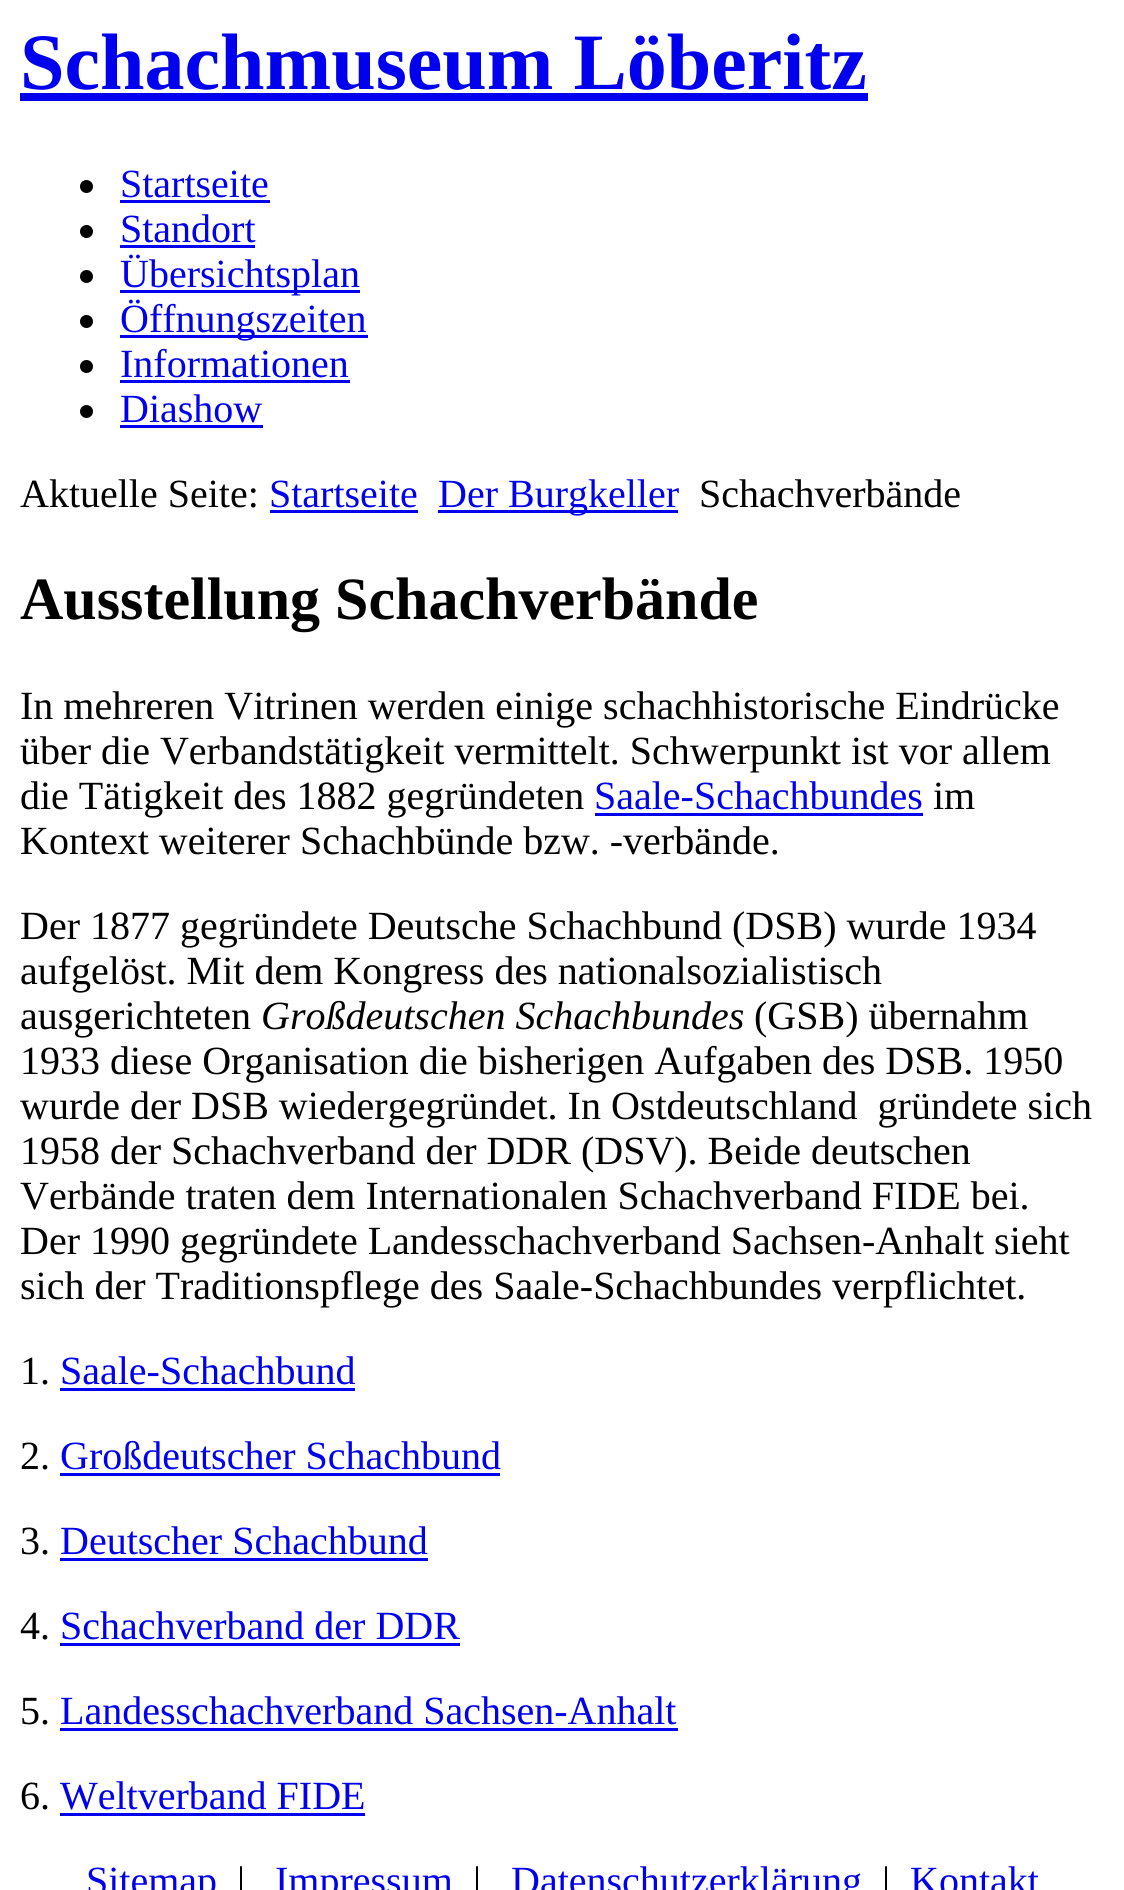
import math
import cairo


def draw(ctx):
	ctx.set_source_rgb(1, 1, 1)
	ctx.paint()
	ctx.select_font_face('Liberation Serif', cairo.FONT_SLANT_NORMAL, cairo.FONT_WEIGHT_BOLD)
	ctx.set_font_size(80)
	ctx.set_source_rgb(0, 0, 0.933)
	ctx.move_to(20, 89)
	ctx.show_text('Schachmuseum Löberitz')
	ctx.rectangle(20, 93, 848, 8)
	ctx.fill()
	ctx.set_source_rgb(0, 0, 0)
	ctx.arc(86.5, 186.5, 6.5, 0, 2 * math.pi)
	ctx.fill()
	ctx.select_font_face('Liberation Serif')
	ctx.set_font_size(40)
	ctx.set_source_rgb(0, 0, 0.933)
	ctx.move_to(120, 197)
	ctx.show_text('Startseite')
	ctx.rectangle(120, 200, 150, 3)
	ctx.fill()
	ctx.set_source_rgb(0, 0, 0)
	ctx.arc(86.5, 231.5, 6.5, 0, 2 * math.pi)
	ctx.fill()
	ctx.set_source_rgb(0, 0, 0.933)
	ctx.move_to(120, 242)
	ctx.show_text('Standort')
	ctx.rectangle(120, 245, 135, 3)
	ctx.fill()
	ctx.set_source_rgb(0, 0, 0)
	ctx.arc(86.5, 276.5, 6.5, 0, 2 * math.pi)
	ctx.fill()
	ctx.set_source_rgb(0, 0, 0.933)
	ctx.rectangle(120, 290, 240, 3)
	ctx.fill()
	ctx.move_to(120, 287)
	ctx.show_text('Übersichtsplan')
	ctx.set_source_rgb(0, 0, 0)
	ctx.new_path()
	ctx.arc(86.5, 321.5, 6.5, 0, 2 * math.pi)
	ctx.fill()
	ctx.set_source_rgb(0, 0, 0.933)
	ctx.rectangle(120, 335, 248, 3)
	ctx.fill()
	ctx.move_to(120, 332)
	ctx.show_text('Öffnungszeiten')
	ctx.set_source_rgb(0, 0, 0)
	ctx.new_path()
	ctx.arc(86.5, 366.5, 6.5, 0, 2 * math.pi)
	ctx.fill()
	ctx.set_source_rgb(0, 0, 0.933)
	ctx.move_to(120, 377)
	ctx.show_text('Informationen')
	ctx.rectangle(120, 380, 230, 3)
	ctx.fill()
	ctx.set_source_rgb(0, 0, 0)
	ctx.arc(86.5, 411.5, 6.5, 0, 2 * math.pi)
	ctx.fill()
	ctx.set_source_rgb(0, 0, 0.933)
	ctx.move_to(120, 422)
	ctx.show_text('Diashow')
	ctx.rectangle(120, 425, 143, 3)
	ctx.fill()
	ctx.set_source_rgb(0, 0, 0)
	ctx.move_to(20, 507)
	ctx.show_text('Aktuelle Seite:')
	ctx.set_source_rgb(0, 0, 0.933)
	ctx.move_to(269, 507)
	ctx.show_text('Startseite')
	ctx.rectangle(270, 510, 148, 3)
	ctx.fill()
	ctx.rectangle(438, 510, 240, 3)
	ctx.fill()
	ctx.move_to(438, 507)
	ctx.show_text('Der Burgkeller')
	ctx.set_source_rgb(0, 0, 0)
	ctx.move_to(699, 507)
	ctx.show_text('Schachverbände')
	ctx.select_font_face('Liberation Serif', cairo.FONT_SLANT_NORMAL, cairo.FONT_WEIGHT_BOLD)
	ctx.set_font_size(60)
	ctx.move_to(20, 619)
	ctx.show_text('Ausstellung Schachverbände')
	ctx.select_font_face('Liberation Serif')
	ctx.set_font_size(40)
	for x, y, s in [
		(20, 719, 'In mehreren Vitrinen werden einige schachhistorische Eindrücke'),
		(20, 764, 'über die Verbandstätigkeit vermittelt. Schwerpunkt ist vor allem'),
		(20, 809, 'die Tätigkeit des 1882 gegründeten'),
	]:
		ctx.move_to(x, y)
		ctx.show_text(s)
	ctx.set_source_rgb(0, 0, 0.933)
	ctx.move_to(594, 809)
	ctx.show_text('Saale-Schachbundes')
	ctx.rectangle(595, 813, 328, 3)
	ctx.fill()
	ctx.set_source_rgb(0, 0, 0)
	for x, y, s in [
		(933, 809, 'im'),
		(20, 854, 'Kontext weiterer Schachbünde bzw. -verbände.'),
		(20, 939, 'Der 1877 gegründete Deutsche Schachbund (DSB) wurde 1934'),
		(20, 984, 'aufgelöst. Mit dem Kongress des nationalsozialistisch'),
		(20, 1029, 'ausgerichteten'),
	]:
		ctx.move_to(x, y)
		ctx.show_text(s)
	ctx.select_font_face('Liberation Serif', cairo.FONT_SLANT_ITALIC)
	ctx.move_to(261, 1029)
	ctx.show_text('Großdeutschen Schachbundes')
	ctx.select_font_face('Liberation Serif')
	for x, y, s in [
		(754, 1029, '(GSB) übernahm'),
		(20, 1074, '1933 diese Organisation die bisherigen Aufgaben des DSB. 1950'),
		(20, 1119, 'wurde der DSB wiedergegründet. In Ostdeutschland  gründete sich'),
		(20, 1164, '1958 der Schachverband der DDR (DSV). Beide deutschen'),
		(20, 1209, 'Verbände traten dem Internationalen Schachverband FIDE bei.'),
		(20, 1254, 'Der 1990 gegründete Landesschachverband Sachsen-Anhalt sieht'),
		(20, 1299, 'sich der Traditionspflege des Saale-Schachbundes verpflichtet.'),
		(20, 1384, '1.'),
	]:
		ctx.move_to(x, y)
		ctx.show_text(s)
	ctx.set_source_rgb(0, 0, 0.933)
	ctx.move_to(60, 1384)
	ctx.show_text('Saale-Schachbund')
	ctx.rectangle(60, 1388, 295, 3)
	ctx.fill()
	ctx.set_source_rgb(0, 0, 0)
	ctx.move_to(20, 1469)
	ctx.show_text('2.')
	ctx.set_source_rgb(0, 0, 0.933)
	ctx.move_to(60, 1469)
	ctx.show_text('Großdeutscher Schachbund')
	ctx.rectangle(60, 1473, 440, 3)
	ctx.fill()
	ctx.set_source_rgb(0, 0, 0)
	ctx.move_to(20, 1554)
	ctx.show_text('3.')
	ctx.set_source_rgb(0, 0, 0.933)
	ctx.move_to(60, 1554)
	ctx.show_text('Deutscher Schachbund')
	ctx.rectangle(60, 1558, 368, 3)
	ctx.fill()
	ctx.set_source_rgb(0, 0, 0)
	ctx.move_to(20, 1639)
	ctx.show_text('4.')
	ctx.set_source_rgb(0, 0, 0.933)
	ctx.move_to(60, 1639)
	ctx.show_text('Schachverband der DDR')
	ctx.rectangle(60, 1643, 400, 3)
	ctx.fill()
	ctx.set_source_rgb(0, 0, 0)
	ctx.move_to(20, 1724)
	ctx.show_text('5.')
	ctx.set_source_rgb(0, 0, 0.933)
	ctx.move_to(60, 1724)
	ctx.show_text('Landesschachverband Sachsen-Anhalt')
	ctx.rectangle(60, 1728, 618, 3)
	ctx.fill()
	ctx.set_source_rgb(0, 0, 0)
	ctx.move_to(20, 1809)
	ctx.show_text('6.')
	ctx.set_source_rgb(0, 0, 0.933)
	ctx.move_to(60, 1809)
	ctx.show_text('Weltverband FIDE')
	ctx.rectangle(60, 1813, 305, 3)
	ctx.fill()
	ctx.move_to(86, 1894)
	ctx.show_text('Sitemap')
	ctx.set_source_rgb(0, 0, 0)
	ctx.move_to(237, 1894)
	ctx.show_text('|')
	ctx.set_source_rgb(0, 0, 0.933)
	ctx.move_to(275, 1894)
	ctx.show_text('Impressum')
	ctx.set_source_rgb(0, 0, 0)
	ctx.move_to(473, 1894)
	ctx.show_text('|')
	ctx.set_source_rgb(0, 0, 0.933)
	ctx.move_to(511, 1894)
	ctx.show_text('Datenschutzerklärung')
	ctx.set_source_rgb(0, 0, 0)
	ctx.move_to(882, 1894)
	ctx.show_text('|')
	ctx.set_source_rgb(0, 0, 0.933)
	ctx.move_to(910, 1894)
	ctx.show_text('Kontakt')


surface = cairo.ImageSurface(cairo.FORMAT_RGB24, 1124, 1890)
ctx = cairo.Context(surface)
options = cairo.FontOptions()
options.set_hint_metrics(cairo.HINT_METRICS_OFF)
options.set_hint_style(cairo.HINT_STYLE_NONE)
ctx.set_font_options(options)
ctx.set_miter_limit(4)
draw(ctx)
surface.write_to_png('image.png')
